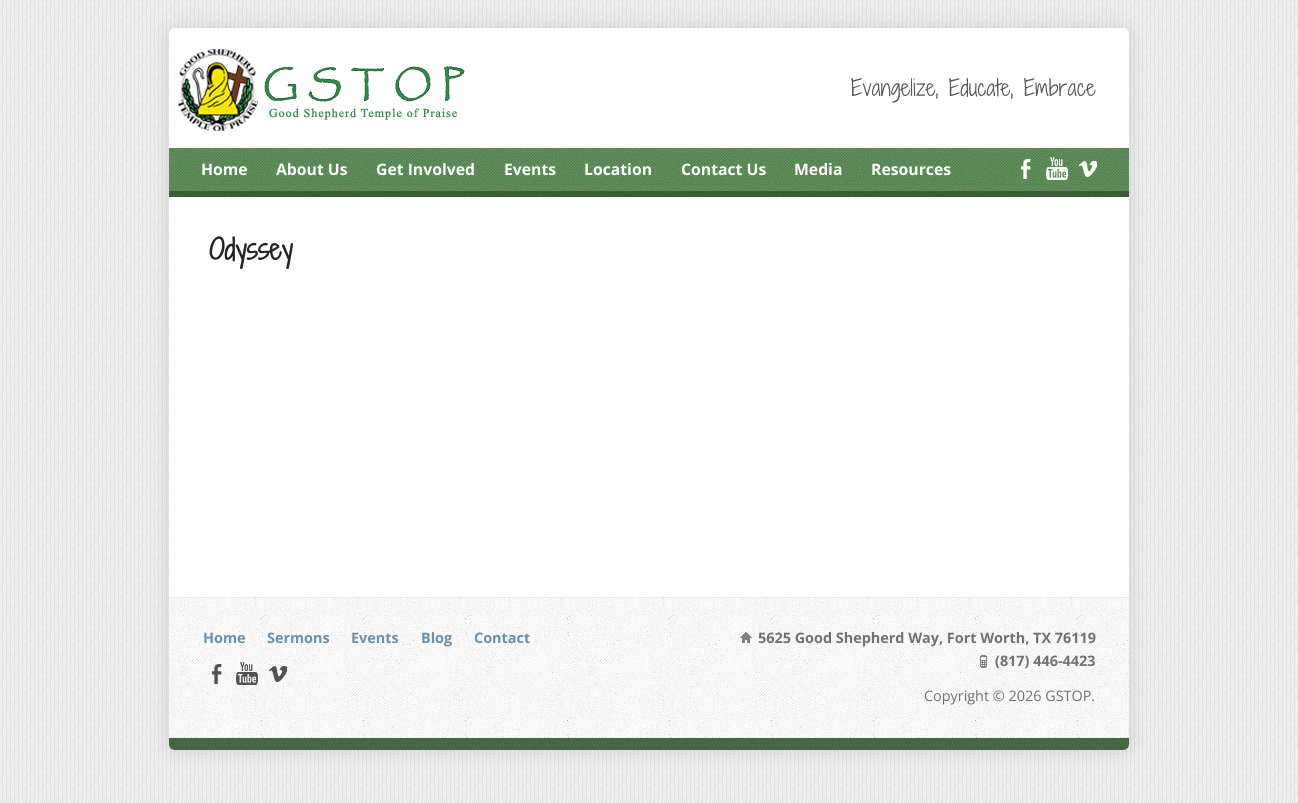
import math
import cairo


def round_path(ctx, x, y, w, h, r):
	ctx.new_sub_path()
	for i, (u, v) in enumerate([(x + w - r, y + h - r), (x + r, y + h - r), (x + r, y + r), (x + w - r, y + r)]):
		ctx.arc(u, v, r, i * math.pi / 2, (i + 1) * math.pi / 2)
	ctx.close_path()

def blur_box(ctx, x, y, w, h, r, blur, alpha):
	ctx.push_group_with_content(cairo.CONTENT_ALPHA)
	ctx.set_operator(cairo.OPERATOR_SOURCE)
	for i in range(15, -16, -2):
		e = blur * i / 6
		if min(w, h) + 2 * e > 0:
			ctx.set_source_rgba(0, 0, 0, alpha * math.erfc((i - 1) / 8.5) / 2)
			round_path(ctx, x - e, y - e, w + 2 * e, h + 2 * e, max(0, min(r + e + blur * .6, min(w, h) / 2 + e)))
			ctx.fill()
	ctx.mask(ctx.pop_group())

def paste(ctx, path, x, y, w, h):
	ctx.save()
	ctx.set_source_surface(cairo.ImageSurface.create_from_png(path), x, y)
	ctx.rectangle(x, y, w, h)
	ctx.fill()
	ctx.restore()

def draw(ctx):
	ctx.set_source_rgb(1, 1, 1)
	ctx.paint()
	paste(ctx, 'media/1.png', 0, 0, 1298, 803)
	ctx.set_source_rgb(0, 0, 0)
	blur_box(ctx, 169, 28, 960, 722, 6, 10, 0.12)
	ctx.set_source_rgb(1, 1, 1)
	round_path(ctx, 169, 28, 960, 722, 6)
	ctx.fill()
	paste(ctx, 'media/2.png', 178, 49, 287, 82)
	ctx.select_font_face('Shadows Into Light Two Light')
	ctx.set_font_size(21.6)
	ctx.set_source_rgb(0.333, 0.333, 0.333)
	ctx.move_to(851, 96)
	ctx.show_text('Evangelize, Educate, Embrace')
	ctx.set_source_rgb(0.318, 0.537, 0.294)
	ctx.rectangle(169, 148, 960, 49)
	ctx.fill()
	paste(ctx, 'media/3.png', 169, 148, 960, 49)
	ctx.select_font_face('Open Sans', cairo.FONT_SLANT_NORMAL, cairo.FONT_WEIGHT_BOLD)
	ctx.set_font_size(15.75)
	ctx.set_source_rgb(1, 1, 1)
	for x, y, s in [
		(201, 175, 'Home'),
		(276, 175, 'About Us'),
		(376, 175, 'Get Involved'),
		(504, 175, 'Events'),
		(584, 175, 'Location'),
		(681, 175, 'Contact Us'),
		(794, 175, 'Media'),
		(871, 175, 'Resources'),
	]:
		ctx.move_to(x, y)
		ctx.show_text(s)
	paste(ctx, 'media/4.png', 1020, 159, 11, 20)
	paste(ctx, 'media/5.png', 1046, 157, 22, 23)
	paste(ctx, 'media/6.png', 1079, 161, 18, 16)
	ctx.set_source_rgba(0, 0, 0, 0.35)
	ctx.rectangle(169, 191, 960, 6)
	ctx.fill()
	ctx.select_font_face('Shadows Into Light Two', cairo.FONT_SLANT_NORMAL, cairo.FONT_WEIGHT_BOLD)
	ctx.set_font_size(27.5)
	ctx.set_source_rgb(0.133, 0.133, 0.133)
	ctx.move_to(209, 260)
	ctx.show_text('Odyssey')
	paste(ctx, 'media/7.png', 169, 598, 960, 140)
	ctx.set_source_rgb(0.918, 0.918, 0.918)
	ctx.rectangle(169, 597, 960, 1)
	ctx.fill()
	ctx.select_font_face('Open Sans', cairo.FONT_SLANT_NORMAL, cairo.FONT_WEIGHT_BOLD)
	ctx.set_font_size(14.4)
	ctx.set_source_rgb(0.416, 0.561, 0.671)
	for x, y, s in [
		(203, 643, 'Home'),
		(267, 643, 'Sermons'),
		(351, 643, 'Events'),
		(421, 643, 'Blog'),
		(474, 643, 'Contact'),
	]:
		ctx.move_to(x, y)
		ctx.show_text(s)
	paste(ctx, 'media/8.png', 211, 664, 11, 20)
	paste(ctx, 'media/9.png', 236, 662, 22, 23)
	paste(ctx, 'media/10.png', 269, 666, 18, 16)
	paste(ctx, 'media/11.png', 740, 632, 12, 11)
	ctx.set_source_rgb(0.443, 0.443, 0.443)
	ctx.move_to(758, 643)
	ctx.show_text('5625 Good Shepherd Way, Fort Worth, TX 76119')
	paste(ctx, 'media/12.png', 980, 655, 7, 13)
	ctx.move_to(995, 666)
	ctx.show_text('(817) 446-4423')
	ctx.select_font_face('Open Sans')
	ctx.move_to(924, 701)
	ctx.show_text('Copyright © 2026 GSTOP.')
	ctx.set_source_rgb(0.318, 0.537, 0.294)
	ctx.new_path()
	ctx.move_to(169, 738)
	ctx.line_to(1129, 738)
	ctx.line_to(1129, 744)
	ctx.curve_to(1129, 747.5, 1126.5, 750, 1123, 750)
	ctx.line_to(175, 750)
	ctx.curve_to(171.5, 750, 169, 747.5, 169, 744)
	ctx.close_path()
	ctx.fill()
	paste(ctx, 'media/13.png', 169, 738, 960, 12)


surface = cairo.ImageSurface(cairo.FORMAT_RGB24, 1298, 803)
ctx = cairo.Context(surface)
options = cairo.FontOptions()
options.set_hint_metrics(cairo.HINT_METRICS_OFF)
options.set_hint_style(cairo.HINT_STYLE_NONE)
ctx.set_font_options(options)
ctx.set_miter_limit(4)
draw(ctx)
surface.write_to_png('image.png')
